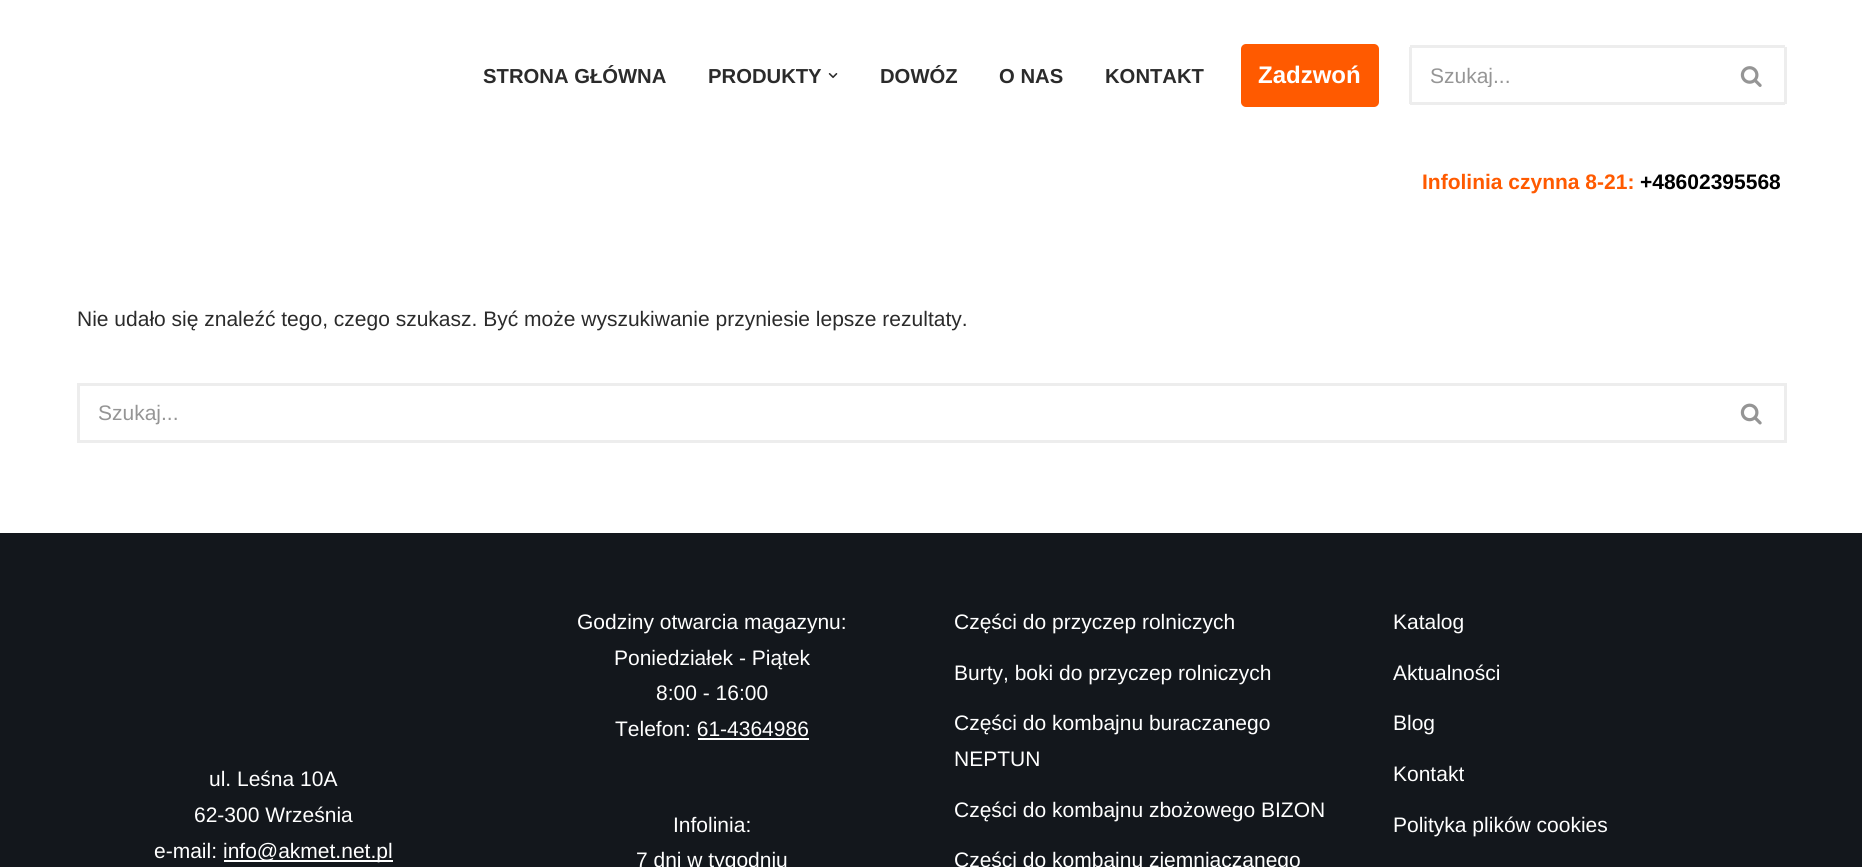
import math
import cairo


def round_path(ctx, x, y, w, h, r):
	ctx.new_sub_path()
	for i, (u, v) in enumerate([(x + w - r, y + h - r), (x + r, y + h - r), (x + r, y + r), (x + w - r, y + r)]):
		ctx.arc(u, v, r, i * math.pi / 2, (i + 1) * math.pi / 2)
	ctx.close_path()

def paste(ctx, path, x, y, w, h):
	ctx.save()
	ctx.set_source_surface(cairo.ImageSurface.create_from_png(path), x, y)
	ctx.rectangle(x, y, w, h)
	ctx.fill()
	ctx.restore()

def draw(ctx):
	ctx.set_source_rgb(1, 1, 1)
	ctx.paint()
	ctx.select_font_face('Liberation Sans', cairo.FONT_SLANT_NORMAL, cairo.FONT_WEIGHT_BOLD)
	ctx.set_font_size(20.25)
	ctx.set_source_rgb(0.169, 0.169, 0.169)
	ctx.move_to(483, 83)
	ctx.show_text('STRONA GŁÓWNA')
	ctx.move_to(708, 83)
	ctx.show_text('PRODUKTY')
	paste(ctx, 'media/1.png', 828, 73, 10, 6)
	for x, y, s in [
		(880, 83, 'DOWÓZ'),
		(999, 83, 'O NAS'),
		(1105, 83, 'KONTAKT'),
	]:
		ctx.move_to(x, y)
		ctx.show_text(s)
	ctx.set_source_rgb(1, 0.353, 0)
	round_path(ctx, 1241, 44, 138, 63, 5)
	ctx.fill()
	ctx.set_font_size(24)
	ctx.set_source_rgb(1, 1, 1)
	ctx.move_to(1258, 83)
	ctx.show_text('Zadzwoń')
	ctx.set_source_rgb(0.929, 0.929, 0.929)
	ctx.rectangle(1410, 45, 375, 3)
	ctx.rectangle(1410, 102, 309, 3)
	ctx.rectangle(1409, 47, 3, 57)
	ctx.fill()
	ctx.save()
	ctx.rectangle(1430, 63, 250, 24)
	ctx.clip()
	ctx.select_font_face('Liberation Sans')
	ctx.set_font_size(21)
	ctx.set_source_rgb(0.584, 0.584, 0.584)
	ctx.move_to(1430, 83)
	ctx.show_text('Szukaj...')
	ctx.restore()
	ctx.rectangle(1784, 47, 3, 57)
	ctx.fill()
	ctx.rectangle(1719, 102, 66, 3)
	ctx.fill()
	paste(ctx, 'media/2.png', 1740, 66, 22, 21)
	ctx.set_font_size(21)
	ctx.set_source_rgb(1, 0.353, 0)
	ctx.move_to(1422, 189)
	ctx.show_text('Infolinia czynna 8-21:')
	ctx.set_source_rgb(0, 0, 0)
	ctx.move_to(1640, 189)
	ctx.show_text('+48602395568')
	ctx.select_font_face('Liberation Sans')
	ctx.set_source_rgb(0.169, 0.169, 0.169)
	ctx.move_to(77, 326)
	ctx.show_text('Nie udało się znaleźć tego, czego szukasz. Być może wyszukiwanie przyniesie lepsze rezultaty.')
	ctx.set_source_rgb(0.929, 0.929, 0.929)
	ctx.rectangle(77, 383, 1710, 3)
	ctx.rectangle(77, 440, 1642, 3)
	ctx.rectangle(77, 383, 3, 60)
	ctx.fill()
	ctx.set_source_rgb(0.584, 0.584, 0.584)
	ctx.move_to(98, 420)
	ctx.show_text('Szukaj...')
	ctx.set_source_rgb(0.929, 0.929, 0.929)
	ctx.rectangle(1784, 383, 3, 60)
	ctx.fill()
	ctx.rectangle(1719, 440, 68, 3)
	ctx.fill()
	paste(ctx, 'media/3.png', 1740, 403, 22, 22)
	ctx.set_source_rgb(0.078, 0.09, 0.11)
	ctx.rectangle(0, 533, 1862, 334)
	ctx.fill()
	ctx.set_source_rgb(1, 1, 1)
	for x, y, s in [
		(209, 786, 'ul. Leśna 10A'),
		(194, 822, '62-300 Września'),
		(154, 858, 'e-mail:'),
	]:
		ctx.move_to(x, y)
		ctx.show_text(s)
	ctx.rectangle(224, 860, 169, 2)
	ctx.fill()
	for x, y, s in [
		(223, 858, 'info@akmet.net.pl'),
		(577, 629, 'Godziny otwarcia magazynu:'),
		(614, 665, 'Poniedziałek - Piątek'),
		(656, 700, '8:00 - 16:00'),
		(615, 736, 'Telefon: 61-4364986'),
	]:
		ctx.move_to(x, y)
		ctx.show_text(s)
	ctx.rectangle(698, 738, 111, 2)
	ctx.fill()
	for x, y, s in [
		(673, 832, 'Infolinia:'),
		(636, 867, '7 dni w tygodniu'),
		(954, 629, 'Części do przyczep rolniczych'),
		(954, 680, 'Burty, boki do przyczep rolniczych'),
		(954, 730, 'Części do kombajnu buraczanego'),
		(954, 766, 'NEPTUN'),
		(954, 817, 'Części do kombajnu zbożowego BIZON'),
		(954, 867, 'Części do kombajnu ziemniaczanego'),
		(1393, 629, 'Katalog'),
		(1393, 680, 'Aktualności'),
		(1393, 730, 'Blog'),
		(1393, 781, 'Kontakt'),
		(1393, 832, 'Polityka plików cookies'),
	]:
		ctx.move_to(x, y)
		ctx.show_text(s)


surface = cairo.ImageSurface(cairo.FORMAT_RGB24, 1862, 867)
ctx = cairo.Context(surface)
options = cairo.FontOptions()
options.set_hint_metrics(cairo.HINT_METRICS_OFF)
options.set_hint_style(cairo.HINT_STYLE_NONE)
ctx.set_font_options(options)
ctx.set_miter_limit(4)
draw(ctx)
surface.write_to_png('image.png')
